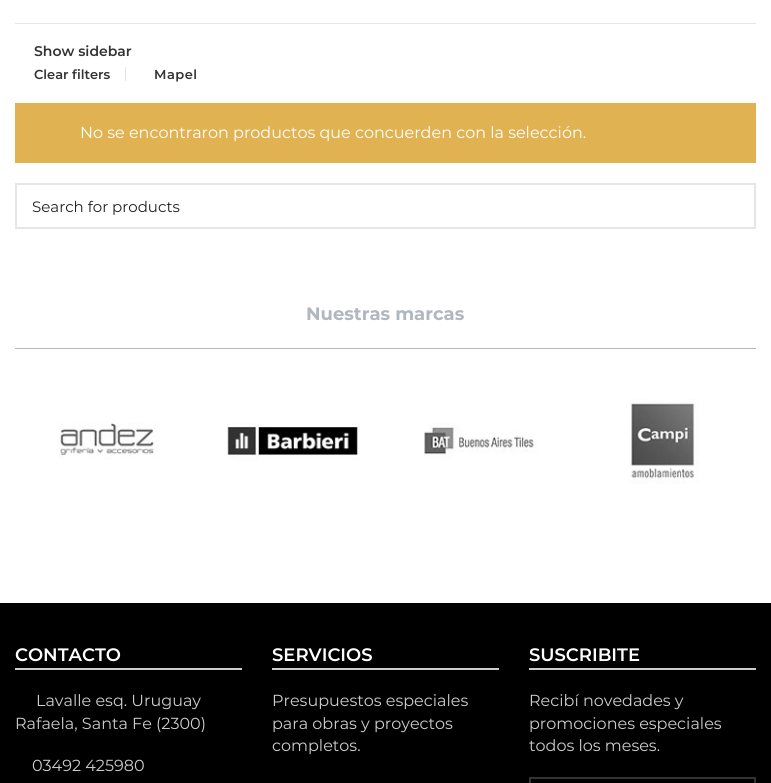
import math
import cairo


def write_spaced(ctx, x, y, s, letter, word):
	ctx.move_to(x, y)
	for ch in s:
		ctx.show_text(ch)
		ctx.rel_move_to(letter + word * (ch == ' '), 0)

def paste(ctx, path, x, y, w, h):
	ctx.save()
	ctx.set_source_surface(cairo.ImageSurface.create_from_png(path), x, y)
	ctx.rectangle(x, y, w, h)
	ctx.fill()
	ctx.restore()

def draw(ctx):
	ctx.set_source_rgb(1, 1, 1)
	ctx.paint()
	ctx.set_source_rgb(0.902, 0.902, 0.902)
	ctx.rectangle(15, 23, 741, 1)
	ctx.fill()
	ctx.select_font_face('Montserrat SemiBold')
	ctx.set_font_size(14)
	ctx.set_source_rgb(0.2, 0.2, 0.2)
	ctx.move_to(34, 56)
	ctx.show_text('Show sidebar')
	ctx.set_source_rgb(0.894, 0.894, 0.894)
	ctx.rectangle(125, 67, 1, 14)
	ctx.fill()
	ctx.set_font_size(13)
	ctx.set_source_rgb(0.2, 0.2, 0.2)
	ctx.move_to(34, 79)
	ctx.show_text('Clear filters')
	write_spaced(ctx, 154, 79, 'Mapel', 0.5, 0)
	ctx.set_source_rgb(0.878, 0.698, 0.322)
	ctx.rectangle(15, 103, 741, 60)
	ctx.fill()
	ctx.select_font_face('Montserrat')
	ctx.set_font_size(16)
	ctx.set_source_rgb(1, 1, 1)
	ctx.move_to(80, 138)
	ctx.show_text('No se encontraron productos que concuerden con la selección.')
	ctx.rectangle(16, 184, 739, 44)
	ctx.set_source_rgb(0.902, 0.902, 0.902)
	ctx.stroke()
	ctx.set_font_size(15)
	ctx.set_source_rgb(0.129, 0.129, 0.129)
	ctx.move_to(32, 212)
	ctx.show_text('Search for products')
	ctx.select_font_face('Montserrat', cairo.FONT_SLANT_NORMAL, cairo.FONT_WEIGHT_BOLD)
	ctx.set_font_size(18)
	ctx.set_source_rgb(0.69, 0.718, 0.753)
	ctx.move_to(306, 320)
	ctx.show_text('Nuestras marcas')
	ctx.rectangle(15, 348, 741, 1)
	ctx.fill()
	paste(ctx, 'media/1.png', 58, 422, 101, 37)
	paste(ctx, 'media/2.png', 227, 423, 133, 38)
	paste(ctx, 'media/3.png', 424, 423, 113, 37)
	paste(ctx, 'media/4.png', 630, 399, 69, 85)
	ctx.set_source_rgb(0, 0, 0)
	ctx.rectangle(0, 603, 771, 180)
	ctx.fill()
	ctx.set_source_rgb(0.8, 0.8, 0.8)
	ctx.rectangle(15, 668, 227, 2)
	ctx.fill()
	ctx.select_font_face('Montserrat SemiBold')
	ctx.set_source_rgb(1, 1, 1)
	ctx.move_to(15, 661)
	ctx.show_text('CONTACTO')
	ctx.select_font_face('Montserrat')
	ctx.set_font_size(16)
	ctx.set_source_rgb(0.8, 0.8, 0.8)
	for x, y, s in [
		(36, 706, 'Lavalle esq. Uruguay'),
		(15, 729, 'Rafaela, Santa Fe (2300)'),
		(32, 771, '03492 425980'),
	]:
		ctx.move_to(x, y)
		ctx.show_text(s)
	ctx.rectangle(272, 668, 227, 2)
	ctx.fill()
	ctx.select_font_face('Montserrat SemiBold')
	ctx.set_font_size(18)
	ctx.set_source_rgb(1, 1, 1)
	ctx.move_to(272, 661)
	ctx.show_text('SERVICIOS')
	ctx.select_font_face('Montserrat')
	ctx.set_font_size(16)
	ctx.set_source_rgb(0.8, 0.8, 0.8)
	for x, y, s in [
		(272, 706, 'Presupuestos especiales'),
		(272, 729, 'para obras y proyectos'),
		(272, 751, 'completos.'),
	]:
		ctx.move_to(x, y)
		ctx.show_text(s)
	ctx.rectangle(529, 668, 227, 2)
	ctx.fill()
	ctx.select_font_face('Montserrat SemiBold')
	ctx.set_font_size(18)
	ctx.set_source_rgb(1, 1, 1)
	ctx.move_to(529, 661)
	ctx.show_text('SUSCRIBITE')
	ctx.select_font_face('Montserrat')
	ctx.set_font_size(16)
	ctx.set_source_rgb(0.8, 0.8, 0.8)
	for x, y, s in [
		(529, 706, 'Recibí novedades y'),
		(529, 729, 'promociones especiales'),
		(529, 751, 'todos los meses.'),
	]:
		ctx.move_to(x, y)
		ctx.show_text(s)
	ctx.rectangle(530, 778, 225, 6)
	ctx.set_source_rgb(0.2, 0.2, 0.2)
	ctx.stroke()


surface = cairo.ImageSurface(cairo.FORMAT_RGB24, 771, 783)
ctx = cairo.Context(surface)
options = cairo.FontOptions()
options.set_hint_metrics(cairo.HINT_METRICS_OFF)
options.set_hint_style(cairo.HINT_STYLE_NONE)
ctx.set_font_options(options)
ctx.set_miter_limit(4)
draw(ctx)
surface.write_to_png('image.png')
